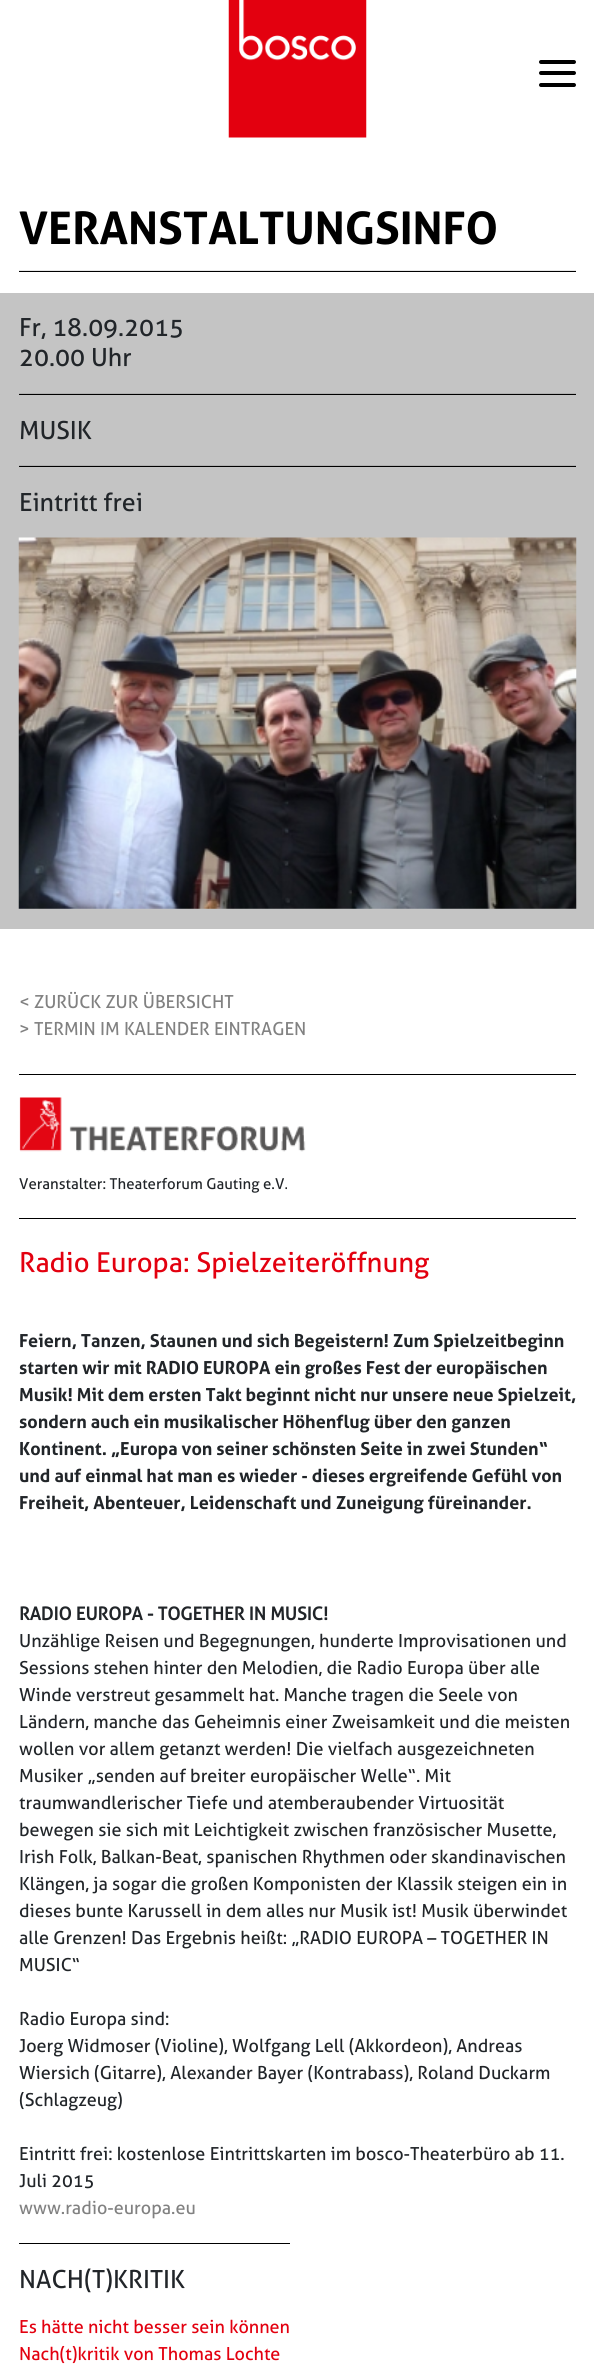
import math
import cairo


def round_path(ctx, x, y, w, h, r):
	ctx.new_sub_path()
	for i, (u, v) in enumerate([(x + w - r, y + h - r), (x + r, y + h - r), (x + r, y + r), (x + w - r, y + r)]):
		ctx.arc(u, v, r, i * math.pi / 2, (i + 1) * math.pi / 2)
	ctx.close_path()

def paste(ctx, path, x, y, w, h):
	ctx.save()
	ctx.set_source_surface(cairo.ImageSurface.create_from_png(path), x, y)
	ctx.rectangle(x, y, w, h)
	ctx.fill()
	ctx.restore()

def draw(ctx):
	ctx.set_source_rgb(1, 1, 1)
	ctx.paint()
	paste(ctx, 'media/1.png', 228, 0, 139, 138)
	ctx.set_source_rgb(0, 0, 0)
	round_path(ctx, 539, 83, 37, 4, 2)
	ctx.fill()
	round_path(ctx, 539, 60, 37, 4, 2)
	ctx.fill()
	round_path(ctx, 539, 71, 37, 4, 2)
	ctx.fill()
	ctx.select_font_face('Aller', cairo.FONT_SLANT_NORMAL, cairo.FONT_WEIGHT_BOLD)
	ctx.set_font_size(45)
	ctx.move_to(19, 244)
	ctx.show_text('VERANSTALTUNGSINFO')
	ctx.set_source_rgb(0.902, 0.902, 0.902)
	ctx.rectangle(19, 270, 557, 1)
	ctx.fill()
	ctx.set_source_rgb(0, 0, 0)
	ctx.rectangle(19, 271, 557, 1)
	ctx.fill()
	ctx.set_source_rgb(0.769, 0.769, 0.769)
	ctx.rectangle(0, 293, 594, 636)
	ctx.fill()
	ctx.select_font_face('Aller')
	ctx.set_font_size(25)
	ctx.set_source_rgb(0.129, 0.145, 0.161)
	ctx.move_to(19, 336)
	ctx.show_text('Fr, 18.09.2015')
	ctx.move_to(19, 366)
	ctx.show_text('20.00 Uhr')
	ctx.set_source_rgb(0.69, 0.69, 0.69)
	ctx.rectangle(19, 393, 557, 1)
	ctx.fill()
	ctx.set_source_rgb(0, 0, 0)
	ctx.rectangle(19, 394, 557, 1)
	ctx.fill()
	ctx.set_source_rgb(0.129, 0.145, 0.161)
	ctx.move_to(19, 439)
	ctx.show_text('MUSIK')
	ctx.set_source_rgb(0.69, 0.69, 0.69)
	ctx.rectangle(19, 465, 557, 1)
	ctx.fill()
	ctx.set_source_rgb(0, 0, 0)
	ctx.rectangle(19, 466, 557, 1)
	ctx.fill()
	ctx.set_source_rgb(0.129, 0.145, 0.161)
	ctx.move_to(19, 511)
	ctx.show_text('Eintritt frei')
	paste(ctx, 'media/2.png', 18, 537, 559, 372)
	ctx.set_font_size(18)
	ctx.set_source_rgb(0.506, 0.506, 0.506)
	ctx.move_to(19, 1008)
	ctx.show_text('< ZURÜCK ZUR ÜBERSICHT')
	ctx.move_to(19, 1035)
	ctx.show_text('> TERMIN IM KALENDER EINTRAGEN')
	ctx.set_source_rgb(0, 0, 0)
	ctx.rectangle(19, 1074, 557, 1)
	ctx.fill()
	ctx.rectangle(19, 1218, 557, 1)
	ctx.fill()
	paste(ctx, 'media/3.png', 19, 1097, 287, 55)
	ctx.set_font_size(15)
	ctx.set_source_rgb(0.129, 0.145, 0.161)
	ctx.move_to(19, 1189)
	ctx.show_text('Veranstalter: Theaterforum Gauting e.V.')
	ctx.set_font_size(27.5)
	ctx.set_source_rgb(0.89, 0, 0.059)
	ctx.move_to(19, 1272)
	ctx.show_text('Radio Europa: Spielzeiteröffnung')
	ctx.select_font_face('Aller', cairo.FONT_SLANT_NORMAL, cairo.FONT_WEIGHT_BOLD)
	ctx.set_font_size(18)
	ctx.set_source_rgb(0.129, 0.145, 0.161)
	for x, y, s in [
		(19, 1347, 'Feiern, Tanzen, Staunen und sich Begeistern! Zum Spielzeitbeginn'),
		(19, 1374, 'starten wir mit RADIO EUROPA ein großes Fest der europäischen'),
		(19, 1401, 'Musik! Mit dem ersten Takt beginnt nicht nur unsere neue Spielzeit,'),
		(19, 1428, 'sondern auch ein musikalischer Höhenflug über den ganzen'),
		(19, 1455, 'Kontinent. „Europa von seiner schönsten Seite in zwei Stunden“'),
		(19, 1482, 'und auf einmal hat man es wieder - dieses ergreifende Gefühl von'),
		(19, 1509, 'Freiheit, Abenteuer, Leidenschaft und Zuneigung füreinander.'),
	]:
		ctx.move_to(x, y)
		ctx.show_text(s)
	ctx.select_font_face('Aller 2', cairo.FONT_SLANT_NORMAL, cairo.FONT_WEIGHT_BOLD)
	ctx.move_to(19, 1620)
	ctx.show_text('RADIO EUROPA - TOGETHER IN MUSIC!')
	ctx.select_font_face('Aller')
	for x, y, s in [
		(19, 1647, 'Unzählige Reisen und Begegnungen, hunderte Improvisationen und'),
		(19, 1674, 'Sessions stehen hinter den Melodien, die Radio Europa über alle'),
		(19, 1701, 'Winde verstreut gesammelt hat. Manche tragen die Seele von'),
		(19, 1728, 'Ländern, manche das Geheimnis einer Zweisamkeit und die meisten'),
		(19, 1755, 'wollen vor allem getanzt werden! Die vielfach ausgezeichneten'),
		(19, 1782, 'Musiker „senden auf breiter europäischer Welle“. Mit'),
		(19, 1809, 'traumwandlerischer Tiefe und atemberaubender Virtuosität'),
		(19, 1836, 'bewegen sie sich mit Leichtigkeit zwischen französischer Musette,'),
		(19, 1863, 'Irish Folk, Balkan-Beat, spanischen Rhythmen oder skandinavischen'),
		(19, 1890, 'Klängen, ja sogar die großen Komponisten der Klassik steigen ein in'),
		(19, 1917, 'dieses bunte Karussell in dem alles nur Musik ist! Musik überwindet'),
		(19, 1944, 'alle Grenzen! Das Ergebnis heißt: „RADIO EUROPA – TOGETHER IN'),
		(19, 1971, 'MUSIC“'),
		(19, 2025, 'Radio Europa sind:'),
		(19, 2052, 'Joerg Widmoser (Violine), Wolfgang Lell (Akkordeon), Andreas'),
		(19, 2079, 'Wiersich (Gitarre), Alexander Bayer (Kontrabass), Roland Duckarm'),
		(19, 2106, '(Schlagzeug)'),
		(19, 2160, 'Eintritt frei: kostenlose Eintrittskarten im bosco-Theaterbüro ab 11.'),
		(19, 2187, 'Juli 2015'),
	]:
		ctx.move_to(x, y)
		ctx.show_text(s)
	ctx.set_source_rgb(0.506, 0.506, 0.506)
	ctx.move_to(19, 2214)
	ctx.show_text('www.radio-europa.eu')
	ctx.set_source_rgb(0, 0, 0)
	ctx.rectangle(19, 2243, 271, 1)
	ctx.fill()
	ctx.set_font_size(25)
	ctx.set_source_rgb(0.129, 0.145, 0.161)
	ctx.move_to(19, 2288)
	ctx.show_text('NACH(T)KRITIK')
	ctx.set_font_size(18)
	ctx.set_source_rgb(0.89, 0, 0.059)
	ctx.move_to(19, 2333)
	ctx.show_text('Es hätte nicht besser sein können')
	ctx.move_to(19, 2360)
	ctx.show_text('Nach(t)kritik von Thomas Lochte')


surface = cairo.ImageSurface(cairo.FORMAT_RGB24, 594, 2367)
ctx = cairo.Context(surface)
options = cairo.FontOptions()
options.set_hint_metrics(cairo.HINT_METRICS_OFF)
options.set_hint_style(cairo.HINT_STYLE_NONE)
ctx.set_font_options(options)
ctx.set_miter_limit(4)
draw(ctx)
surface.write_to_png('image.png')
